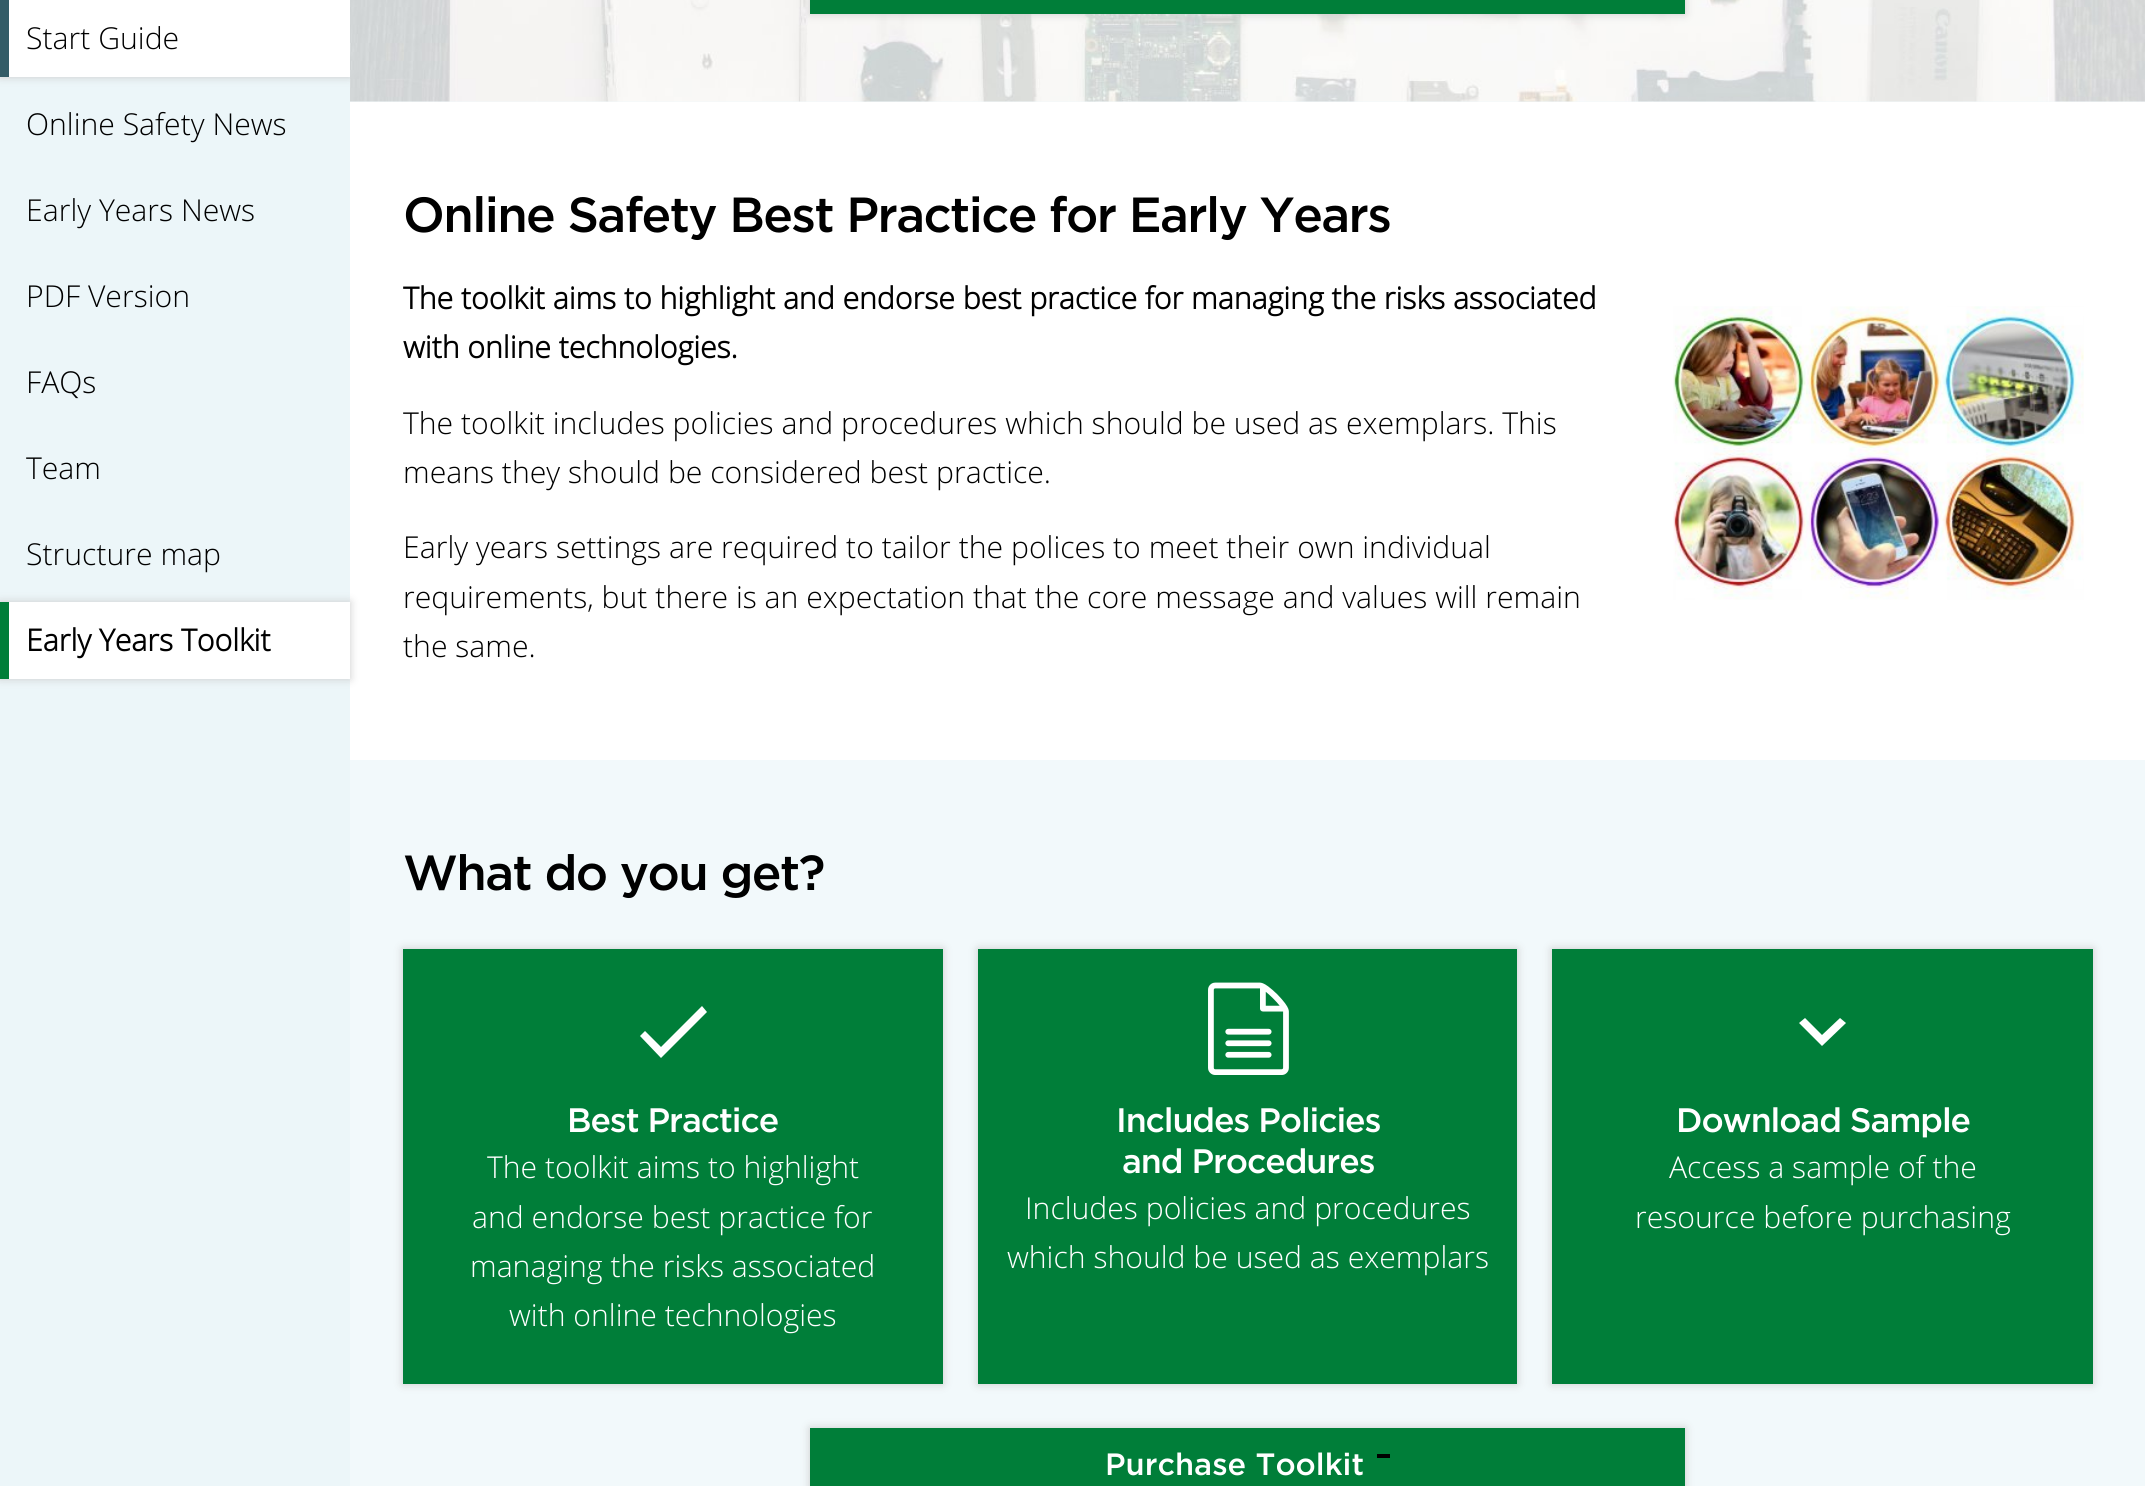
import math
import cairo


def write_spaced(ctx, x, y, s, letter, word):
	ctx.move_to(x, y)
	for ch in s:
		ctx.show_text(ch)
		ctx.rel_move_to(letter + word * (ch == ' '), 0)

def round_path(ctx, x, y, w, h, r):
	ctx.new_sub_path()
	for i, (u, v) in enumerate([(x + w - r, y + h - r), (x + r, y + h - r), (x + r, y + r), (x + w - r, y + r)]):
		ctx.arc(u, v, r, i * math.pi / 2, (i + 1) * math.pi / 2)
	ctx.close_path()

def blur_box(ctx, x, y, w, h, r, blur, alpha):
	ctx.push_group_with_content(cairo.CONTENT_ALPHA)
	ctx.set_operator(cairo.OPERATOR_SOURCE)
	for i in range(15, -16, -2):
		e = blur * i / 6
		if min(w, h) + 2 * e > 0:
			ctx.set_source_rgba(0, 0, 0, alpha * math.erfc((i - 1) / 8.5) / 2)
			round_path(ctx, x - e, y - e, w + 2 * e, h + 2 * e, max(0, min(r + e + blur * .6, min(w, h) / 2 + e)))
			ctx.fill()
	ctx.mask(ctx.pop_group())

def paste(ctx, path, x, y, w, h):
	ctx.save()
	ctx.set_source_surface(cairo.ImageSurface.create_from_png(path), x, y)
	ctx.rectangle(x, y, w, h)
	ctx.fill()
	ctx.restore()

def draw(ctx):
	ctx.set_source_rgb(1, 1, 1)
	ctx.paint()
	ctx.set_source_rgb(0.925, 0.961, 0.976)
	ctx.rectangle(0, 77, 350, 1409)
	ctx.fill()
	ctx.set_source_rgb(0.8, 0.8, 0.8)
	blur_box(ctx, 0, 0, 350, 77, 0, 4.5, 1)
	ctx.set_source_rgb(1, 1, 1)
	ctx.rectangle(9, 0, 341, 77)
	ctx.fill()
	ctx.set_source_rgb(0.2, 0.361, 0.404)
	ctx.rectangle(0, 0, 9, 77)
	ctx.fill()
	ctx.select_font_face('Open Sans Light')
	ctx.set_font_size(30.8)
	ctx.set_source_rgb(0, 0, 0)
	for x, y, s in [
		(26, 49, 'Start Guide'),
		(26, 135, 'Online Safety News'),
		(26, 221, 'Early Years News'),
		(26, 307, 'PDF Version'),
		(26, 393, 'FAQs'),
		(26, 479, 'Team'),
		(26, 565, 'Structure map'),
	]:
		ctx.move_to(x, y)
		ctx.show_text(s)
	ctx.set_source_rgb(0.8, 0.8, 0.8)
	blur_box(ctx, 0, 602, 350, 77, 0, 4.5, 1)
	ctx.set_source_rgb(1, 1, 1)
	ctx.rectangle(9, 602, 341, 77)
	ctx.fill()
	ctx.set_source_rgb(0, 0.494, 0.224)
	ctx.rectangle(0, 602, 9, 77)
	ctx.fill()
	ctx.select_font_face('Open Sans', cairo.FONT_SLANT_NORMAL, cairo.FONT_WEIGHT_BOLD)
	ctx.set_source_rgb(0, 0, 0)
	ctx.move_to(26, 651)
	ctx.show_text('Early Years Toolkit')
	ctx.set_source_rgb(0.949, 0.973, 0.984)
	ctx.rectangle(350, 101, 1795, 1)
	ctx.fill()
	paste(ctx, 'media/1.png', 350, 0, 1795, 102)
	ctx.set_source_rgb(0.8, 0.8, 0.8)
	blur_box(ctx, 810, -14, 875, 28, 0, 4.5, 1)
	ctx.set_source_rgb(0, 0.494, 0.224)
	ctx.rectangle(810, 0, 875, 14)
	ctx.fill()
	ctx.select_font_face('Gotham Medium')
	ctx.set_font_size(49.25)
	ctx.set_source_rgb(0, 0, 0)
	write_spaced(ctx, 403, 232, 'Online Safety Best Practice for Early Years', -1.6, 0)
	ctx.select_font_face('Open Sans', cairo.FONT_SLANT_NORMAL, cairo.FONT_WEIGHT_BOLD)
	ctx.set_font_size(30.8)
	ctx.move_to(403, 309)
	ctx.show_text('The toolkit aims to highlight and endorse best practice for managing the risks associated')
	ctx.move_to(403, 358)
	ctx.show_text('with online technologies.')
	paste(ctx, 'media/2.png', 1673, 306, 411, 294)
	ctx.select_font_face('Open Sans Light')
	for x, y, s in [
		(403, 434, 'The toolkit includes policies and procedures which should be used as exemplars. This'),
		(403, 483, 'means they should be considered best practice.'),
		(403, 558, 'Early years settings are required to tailor the polices to meet their own individual'),
		(403, 608, 'requirements, but there is an expectation that the core message and values will remain'),
		(403, 657, 'the same.'),
	]:
		ctx.move_to(x, y)
		ctx.show_text(s)
	ctx.set_source_rgb(0.949, 0.973, 0.984)
	ctx.rectangle(350, 760, 1795, 726)
	ctx.fill()
	ctx.select_font_face('Gotham Medium')
	ctx.set_font_size(49.25)
	ctx.set_source_rgb(0, 0, 0)
	write_spaced(ctx, 403, 890, 'What do you get?', -1.6, 0)
	ctx.set_source_rgb(0.8, 0.8, 0.8)
	blur_box(ctx, 403, 949, 540, 435, 0, 4.5, 1)
	ctx.set_source_rgb(0, 0.494, 0.224)
	ctx.rectangle(403, 949, 540, 435)
	ctx.fill()
	ctx.set_source_rgb(1, 1, 1)
	ctx.new_path()
	ctx.move_to(661, 1047)
	ctx.line_to(645, 1031)
	ctx.line_to(640, 1036)
	ctx.line_to(661, 1058)
	ctx.line_to(707, 1012)
	ctx.line_to(702, 1006)
	ctx.close_path()
	ctx.fill()
	ctx.set_font_size(33.9)
	write_spaced(ctx, 567, 1132, 'Best Practice', -1.1, 0)
	ctx.select_font_face('Open Sans Light')
	ctx.set_font_size(30.8)
	for x, y, s in [
		(487, 1178, 'The toolkit aims to highlight'),
		(472, 1228, 'and endorse best practice for'),
		(470, 1277, 'managing the risks associated'),
		(509, 1326, 'with online technologies'),
	]:
		ctx.move_to(x, y)
		ctx.show_text(s)
	ctx.set_source_rgb(0.8, 0.8, 0.8)
	blur_box(ctx, 978, 949, 539, 435, 0, 4.5, 1)
	ctx.set_source_rgb(0, 0.494, 0.224)
	ctx.rectangle(978, 949, 539, 435)
	ctx.fill()
	paste(ctx, 'media/3.png', 1208, 982, 81, 93)
	ctx.select_font_face('Gotham Medium')
	ctx.set_font_size(33.9)
	ctx.set_source_rgb(1, 1, 1)
	write_spaced(ctx, 1116, 1132, 'Includes Policies', -1.1, 0)
	write_spaced(ctx, 1122, 1173, 'and Procedures', -1.1, 0)
	ctx.select_font_face('Open Sans Light')
	ctx.set_font_size(30.8)
	ctx.move_to(1025, 1219)
	ctx.show_text('Includes policies and procedures')
	ctx.move_to(1007, 1268)
	ctx.show_text('which should be used as exemplars')
	ctx.set_source_rgb(0.8, 0.8, 0.8)
	blur_box(ctx, 1552, 949, 541, 435, 0, 4.5, 1)
	ctx.set_source_rgb(0, 0.494, 0.224)
	ctx.rectangle(1552, 949, 541, 435)
	ctx.fill()
	ctx.set_source_rgb(1, 1, 1)
	ctx.new_path()
	ctx.move_to(1840, 1018)
	ctx.line_to(1822, 1035)
	ctx.line_to(1805, 1018)
	ctx.line_to(1799, 1023)
	ctx.line_to(1822, 1046)
	ctx.line_to(1846, 1023)
	ctx.close_path()
	ctx.fill()
	ctx.select_font_face('Gotham Medium')
	ctx.set_font_size(33.9)
	write_spaced(ctx, 1676, 1132, 'Download Sample', -1.1, 0)
	ctx.select_font_face('Open Sans Light')
	ctx.set_font_size(30.8)
	ctx.move_to(1669, 1178)
	ctx.show_text('Access a sample of the')
	ctx.move_to(1635, 1228)
	ctx.show_text('resource before purchasing')
	ctx.set_source_rgb(0.8, 0.8, 0.8)
	blur_box(ctx, 810, 1428, 875, 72, 0, 4.5, 1)
	ctx.set_source_rgb(0, 0.494, 0.224)
	ctx.rectangle(810, 1428, 875, 58)
	ctx.fill()
	ctx.select_font_face('Gotham Medium')
	ctx.set_source_rgb(1, 1, 1)
	ctx.move_to(1105, 1475)
	ctx.show_text('Purchase Toolkit')
	ctx.set_source_rgb(0, 0, 0)
	ctx.rectangle(1377, 1454, 13, 4)
	ctx.fill()


surface = cairo.ImageSurface(cairo.FORMAT_RGB24, 2145, 1486)
ctx = cairo.Context(surface)
options = cairo.FontOptions()
options.set_hint_metrics(cairo.HINT_METRICS_OFF)
options.set_hint_style(cairo.HINT_STYLE_NONE)
ctx.set_font_options(options)
ctx.set_miter_limit(4)
draw(ctx)
surface.write_to_png('image.png')
